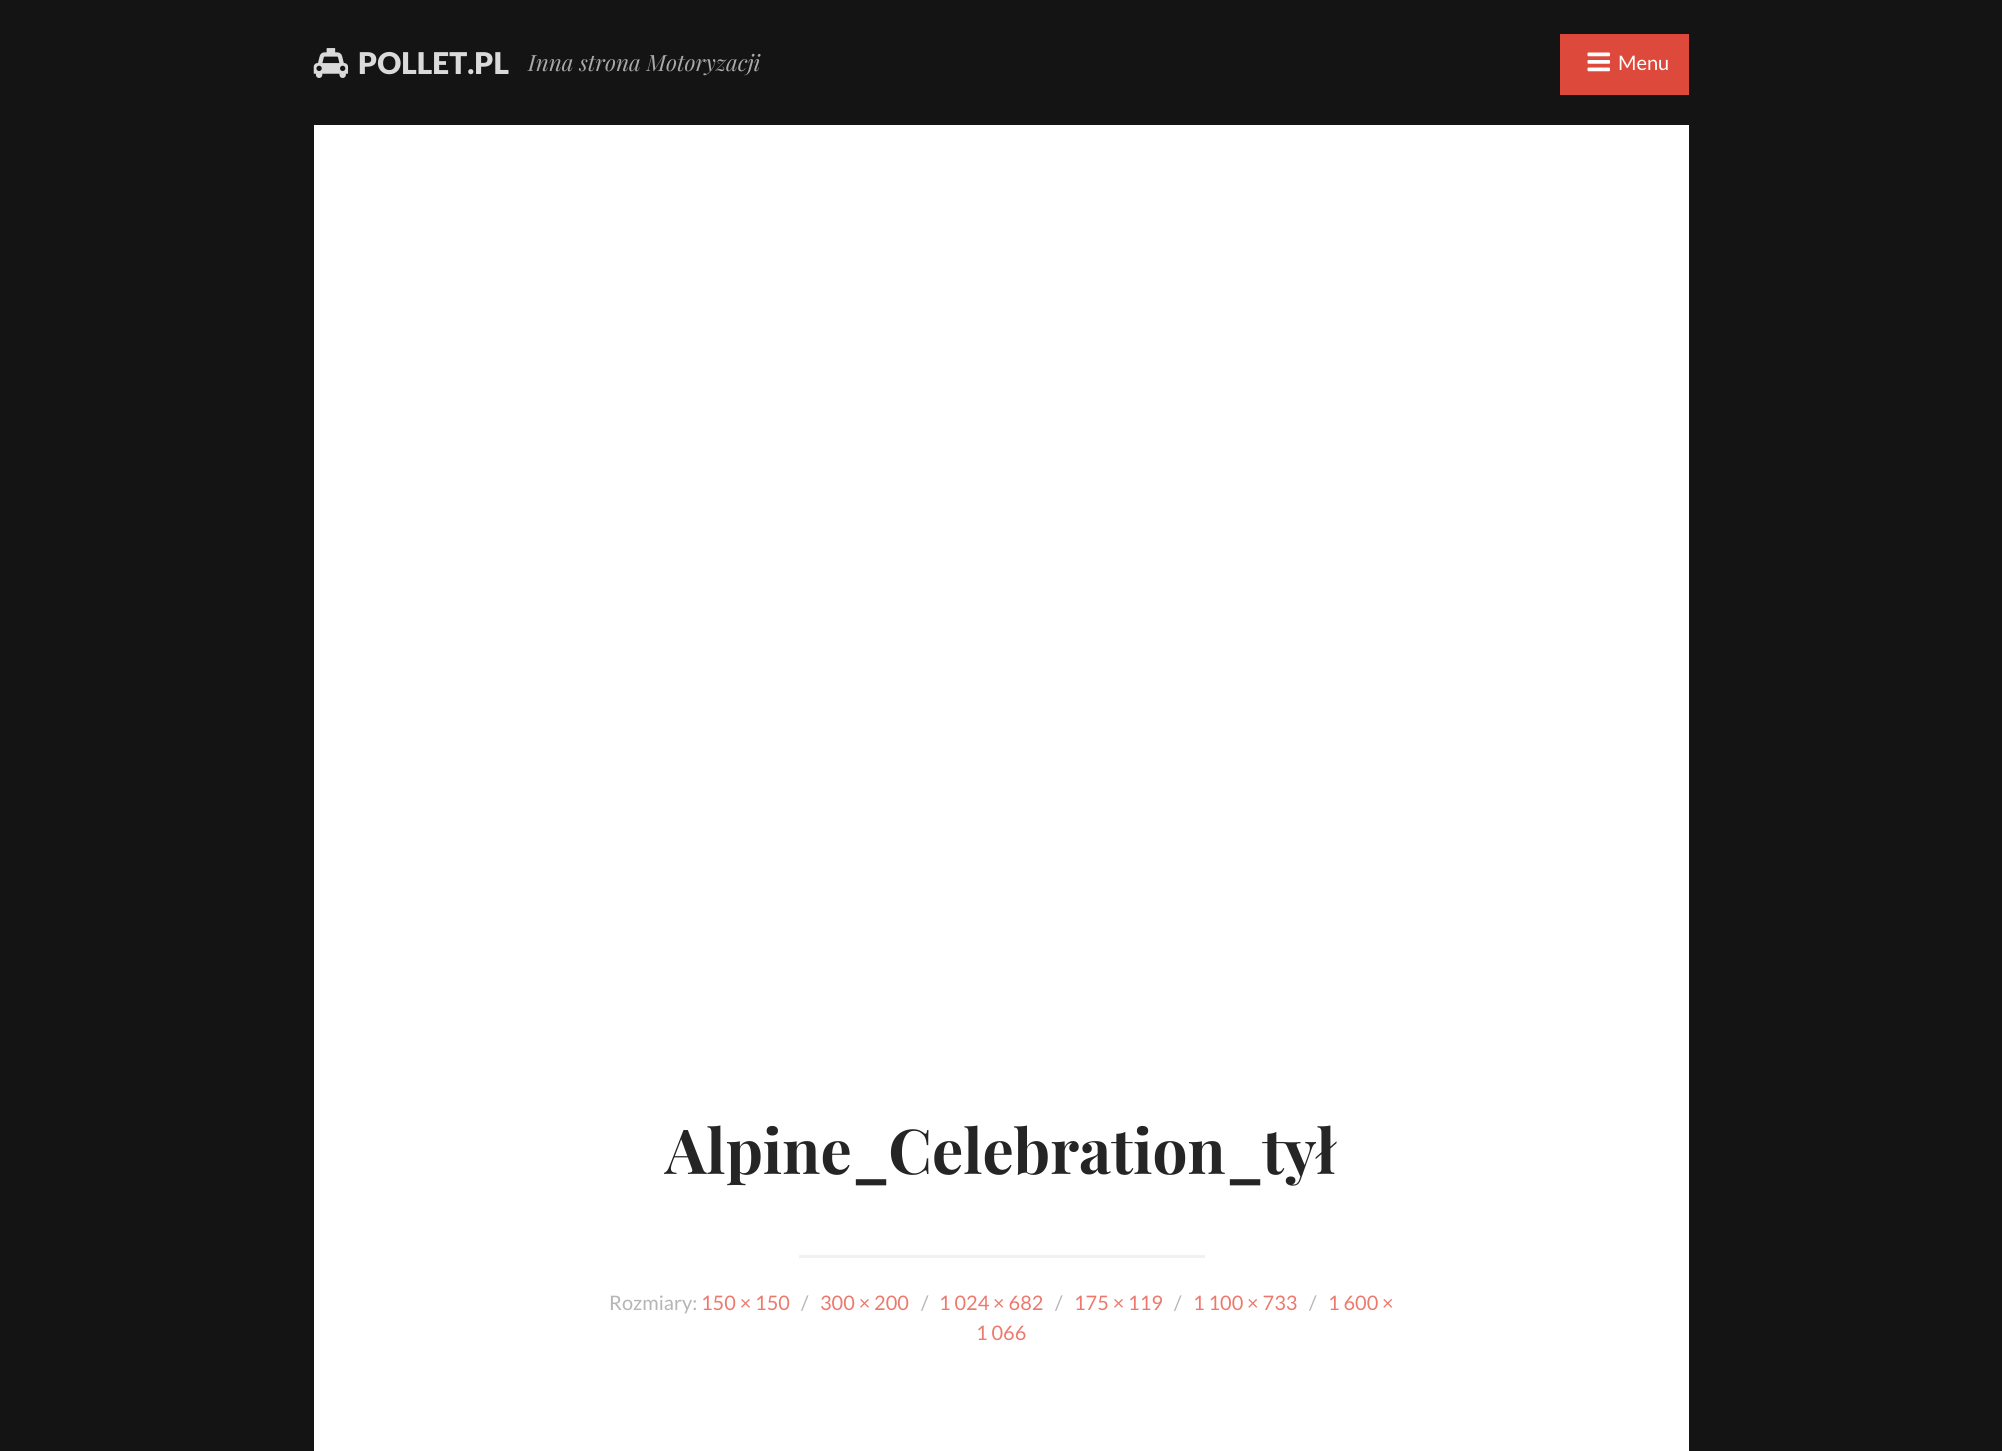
import math
import cairo


def paste(ctx, path, x, y, w, h):
	ctx.save()
	ctx.set_source_surface(cairo.ImageSurface.create_from_png(path), x, y)
	ctx.rectangle(x, y, w, h)
	ctx.fill()
	ctx.restore()

def draw(ctx):
	ctx.set_source_rgb(0.082, 0.082, 0.082)
	ctx.paint()
	paste(ctx, 'media/1.png', 313, 48, 36, 30)
	ctx.select_font_face('Lato Black')
	ctx.set_font_size(30)
	ctx.set_source_rgb(0.855, 0.855, 0.855)
	ctx.move_to(358, 74)
	ctx.show_text('POLLET.PL')
	ctx.select_font_face('Playfair Display', cairo.FONT_SLANT_ITALIC)
	ctx.set_font_size(22.5)
	ctx.set_source_rgb(0.663, 0.663, 0.663)
	ctx.move_to(528, 71)
	ctx.show_text('Inna strona Motoryzacji')
	ctx.set_source_rgb(0.867, 0.286, 0.227)
	ctx.rectangle(1560, 34, 129, 61)
	ctx.fill()
	paste(ctx, 'media/2.png', 1587, 52, 23, 20)
	ctx.select_font_face('Lato')
	ctx.set_font_size(20)
	ctx.set_source_rgb(1, 1, 1)
	ctx.move_to(1618, 70)
	ctx.show_text('Menu')
	ctx.rectangle(314, 125, 1375, 1326)
	ctx.fill()
	ctx.select_font_face('Playfair Display', cairo.FONT_SLANT_NORMAL, cairo.FONT_WEIGHT_BOLD)
	ctx.set_font_size(62)
	ctx.set_source_rgb(0.145, 0.145, 0.145)
	ctx.move_to(665, 1174)
	ctx.show_text('Alpine_Celebration_tył')
	ctx.set_source_rgb(0.945, 0.945, 0.945)
	ctx.rectangle(799, 1255, 406, 3)
	ctx.fill()
	ctx.select_font_face('Lato')
	ctx.set_font_size(20)
	ctx.set_source_rgb(0.71, 0.71, 0.71)
	ctx.move_to(609, 1310)
	ctx.show_text('Rozmiary:')
	ctx.set_source_rgb(0.929, 0.475, 0.427)
	ctx.move_to(701, 1310)
	ctx.show_text('150 × 150')
	ctx.set_source_rgb(0.71, 0.71, 0.71)
	ctx.move_to(801, 1310)
	ctx.show_text('/')
	ctx.set_source_rgb(0.929, 0.475, 0.427)
	ctx.move_to(820, 1310)
	ctx.show_text('300 × 200')
	ctx.set_source_rgb(0.71, 0.71, 0.71)
	ctx.move_to(921, 1310)
	ctx.show_text('/')
	ctx.set_source_rgb(0.929, 0.475, 0.427)
	ctx.move_to(939, 1310)
	ctx.show_text('1 024 × 682')
	ctx.set_source_rgb(0.71, 0.71, 0.71)
	ctx.move_to(1055, 1310)
	ctx.show_text('/')
	ctx.set_source_rgb(0.929, 0.475, 0.427)
	ctx.move_to(1074, 1310)
	ctx.show_text('175 × 119')
	ctx.set_source_rgb(0.71, 0.71, 0.71)
	ctx.move_to(1174, 1310)
	ctx.show_text('/')
	ctx.set_source_rgb(0.929, 0.475, 0.427)
	ctx.move_to(1193, 1310)
	ctx.show_text('1 100 × 733')
	ctx.set_source_rgb(0.71, 0.71, 0.71)
	ctx.move_to(1309, 1310)
	ctx.show_text('/')
	ctx.set_source_rgb(0.929, 0.475, 0.427)
	ctx.move_to(1328, 1310)
	ctx.show_text('1 600 ×')
	ctx.move_to(976, 1340)
	ctx.show_text('1 066')


surface = cairo.ImageSurface(cairo.FORMAT_RGB24, 2002, 1451)
ctx = cairo.Context(surface)
options = cairo.FontOptions()
options.set_hint_metrics(cairo.HINT_METRICS_OFF)
options.set_hint_style(cairo.HINT_STYLE_NONE)
ctx.set_font_options(options)
ctx.set_miter_limit(4)
draw(ctx)
surface.write_to_png('image.png')
